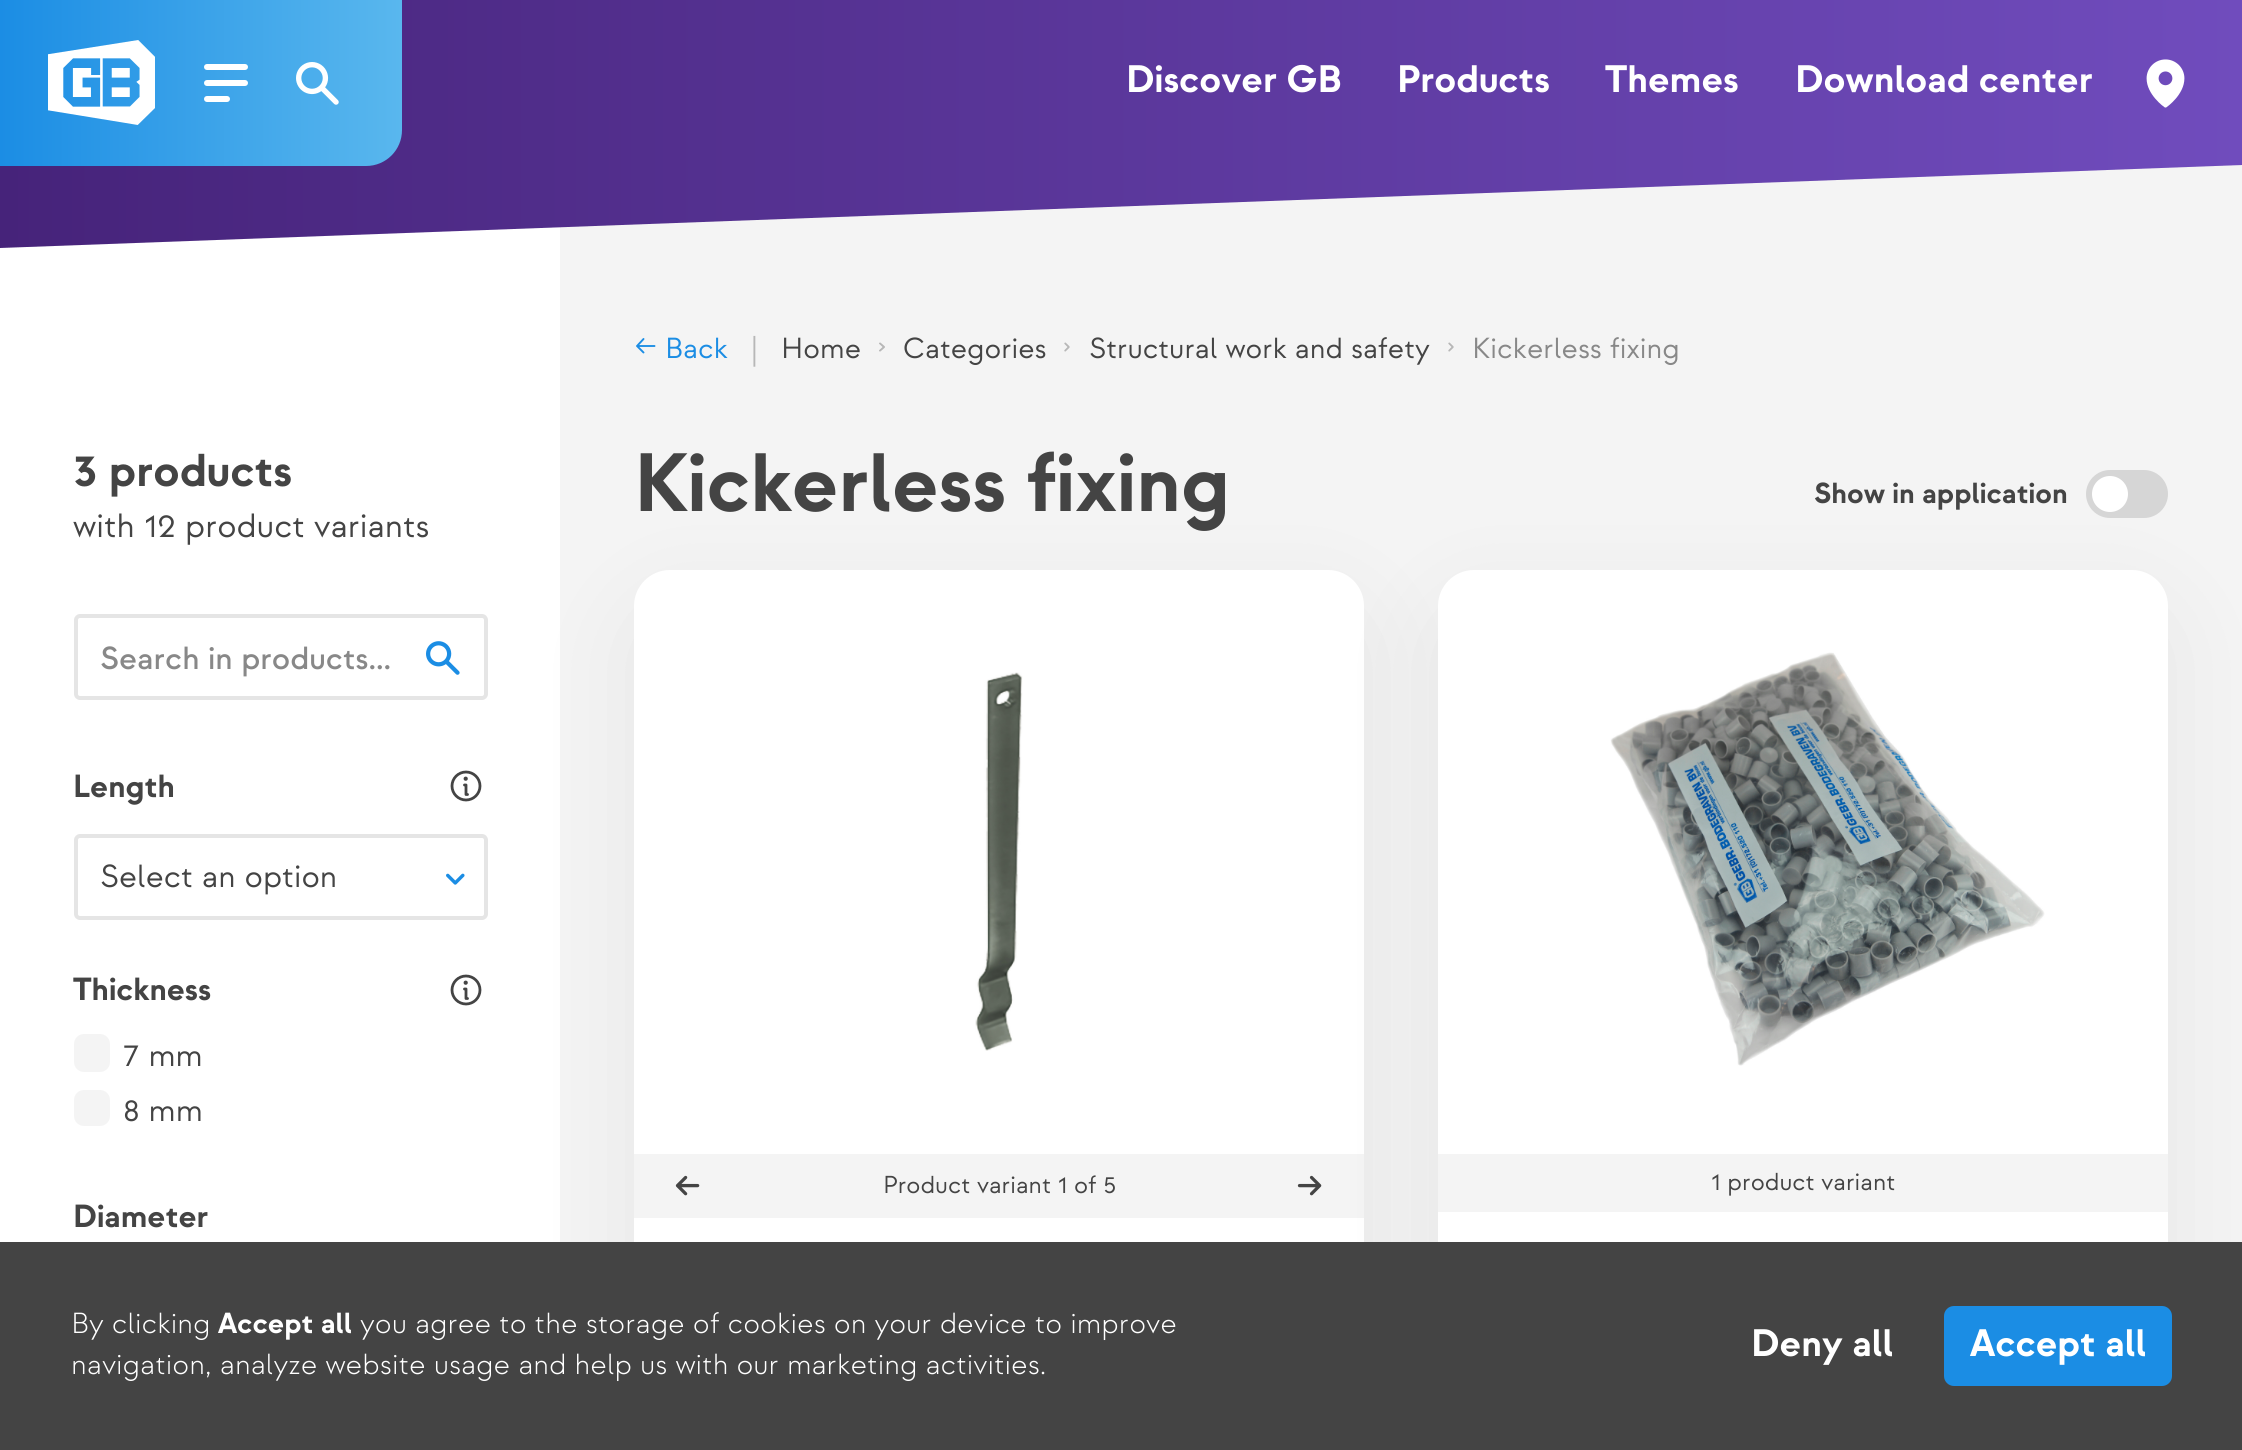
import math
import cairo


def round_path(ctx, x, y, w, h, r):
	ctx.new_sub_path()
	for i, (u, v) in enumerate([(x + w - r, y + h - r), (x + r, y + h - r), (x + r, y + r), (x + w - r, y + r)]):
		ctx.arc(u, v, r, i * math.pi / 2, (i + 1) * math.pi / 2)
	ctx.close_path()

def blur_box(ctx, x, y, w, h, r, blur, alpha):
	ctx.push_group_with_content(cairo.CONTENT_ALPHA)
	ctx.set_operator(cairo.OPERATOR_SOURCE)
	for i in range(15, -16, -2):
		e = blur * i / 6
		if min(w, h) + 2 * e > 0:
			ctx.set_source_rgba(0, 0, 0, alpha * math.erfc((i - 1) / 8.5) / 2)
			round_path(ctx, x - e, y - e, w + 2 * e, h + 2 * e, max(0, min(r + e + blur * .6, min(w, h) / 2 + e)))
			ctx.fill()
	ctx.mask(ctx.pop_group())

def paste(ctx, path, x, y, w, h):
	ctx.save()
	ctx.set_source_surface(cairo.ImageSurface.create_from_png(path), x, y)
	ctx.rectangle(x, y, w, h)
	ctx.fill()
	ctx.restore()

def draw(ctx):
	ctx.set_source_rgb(0.957, 0.957, 0.957)
	ctx.paint()
	ctx.set_source_rgb(1, 1, 1)
	ctx.rectangle(0, 227, 560, 1015)
	ctx.fill()
	gradient = cairo.LinearGradient(-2, 124, 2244, 124)
	gradient.add_color_stop_rgba(0, 0.275, 0.137, 0.478, 1)
	gradient.add_color_stop_rgba(1, 0.439, 0.298, 0.741, 1)
	ctx.set_source(gradient)
	ctx.new_path()
	ctx.move_to(0, 0)
	ctx.line_to(0, 248)
	ctx.line_to(2242, 165)
	ctx.line_to(2242, 0)
	ctx.close_path()
	ctx.fill()
	gradient = cairo.LinearGradient(0, 83, 402, 83)
	gradient.add_color_stop_rgba(0, 0.106, 0.553, 0.894, 1)
	gradient.add_color_stop_rgba(1, 0.349, 0.718, 0.933, 1)
	ctx.set_source(gradient)
	ctx.new_path()
	ctx.move_to(0, 0)
	ctx.line_to(402, 0)
	ctx.line_to(402, 130)
	ctx.curve_to(402, 150, 386, 166, 366, 166)
	ctx.line_to(0, 166)
	ctx.close_path()
	ctx.fill()
	paste(ctx, 'media/1.png', 48, 40, 107, 85)
	ctx.set_source_rgb(1, 1, 1)
	round_path(ctx, 204, 64, 44, 6, 3)
	ctx.fill()
	round_path(ctx, 204, 80, 44, 6, 3)
	ctx.fill()
	round_path(ctx, 204, 96, 26, 6, 3)
	ctx.fill()
	paste(ctx, 'media/2.png', 296, 62, 43, 43)
	ctx.select_font_face('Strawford', cairo.FONT_SLANT_NORMAL, cairo.FONT_WEIGHT_BOLD)
	ctx.set_font_size(38.25)
	for x, y, s in [
		(1126, 92, 'Discover GB'),
		(1397, 92, 'Products'),
		(1605, 92, 'Themes'),
		(1795, 92, 'Download center'),
	]:
		ctx.move_to(x, y)
		ctx.show_text(s)
	paste(ctx, 'media/3.png', 2146, 59, 39, 49)
	ctx.set_font_size(46)
	ctx.set_source_rgb(0.267, 0.267, 0.267)
	ctx.move_to(73, 486)
	ctx.show_text('3 products')
	ctx.select_font_face('Strawford')
	ctx.set_font_size(33.6)
	ctx.move_to(73, 537)
	ctx.show_text('with 12 product variants')
	round_path(ctx, 76, 616, 410, 82, 4)
	ctx.set_source_rgb(0.898, 0.898, 0.898)
	ctx.set_line_width(4)
	ctx.stroke()
	ctx.select_font_face('Strawford Medium')
	ctx.set_font_size(32)
	ctx.set_source_rgb(0.533, 0.533, 0.533)
	ctx.move_to(100, 669)
	ctx.show_text('Search in products...')
	paste(ctx, 'media/4.png', 426, 641, 34, 34)
	ctx.select_font_face('Strawford', cairo.FONT_SLANT_NORMAL, cairo.FONT_WEIGHT_BOLD)
	ctx.set_source_rgb(0.267, 0.267, 0.267)
	ctx.move_to(73, 797)
	ctx.show_text('Length')
	ctx.new_path()
	ctx.arc(466, 786, 14, 0, 2 * math.pi)
	ctx.set_line_width(2.8)
	ctx.stroke()
	ctx.new_path()
	ctx.move_to(464.5, 785)
	ctx.line_to(466, 785)
	ctx.line_to(466, 794.5)
	ctx.line_to(467.5, 794.5)
	ctx.set_line_cap(cairo.LINE_CAP_ROUND)
	ctx.set_line_join(cairo.LINE_JOIN_ROUND)
	ctx.stroke()
	ctx.arc(465.7, 778.7, 2.1, 0, 2 * math.pi)
	ctx.fill()
	round_path(ctx, 76, 836, 410, 82, 4)
	ctx.set_source_rgb(0.898, 0.898, 0.898)
	ctx.set_line_width(4)
	ctx.set_line_cap(cairo.LINE_CAP_BUTT)
	ctx.set_line_join(cairo.LINE_JOIN_MITER)
	ctx.stroke()
	ctx.select_font_face('Strawford')
	ctx.set_source_rgb(0.267, 0.267, 0.267)
	ctx.move_to(100, 887)
	ctx.show_text('Select an option')
	paste(ctx, 'media/5.png', 446, 873, 19, 12)
	ctx.select_font_face('Strawford', cairo.FONT_SLANT_NORMAL, cairo.FONT_WEIGHT_BOLD)
	ctx.move_to(73, 1000)
	ctx.show_text('Thickness')
	ctx.new_path()
	ctx.arc(466, 990, 14, 0, 2 * math.pi)
	ctx.set_line_width(2.8)
	ctx.stroke()
	ctx.new_path()
	ctx.move_to(464.5, 989)
	ctx.line_to(466, 989)
	ctx.line_to(466, 998.5)
	ctx.line_to(467.5, 998.5)
	ctx.set_line_cap(cairo.LINE_CAP_ROUND)
	ctx.set_line_join(cairo.LINE_JOIN_ROUND)
	ctx.stroke()
	ctx.arc(465.7, 982.7, 2.1, 0, 2 * math.pi)
	ctx.fill()
	ctx.set_source_rgb(0.957, 0.957, 0.957)
	round_path(ctx, 74, 1034, 36, 38, 10)
	ctx.fill()
	ctx.select_font_face('Strawford')
	ctx.set_source_rgb(0.267, 0.267, 0.267)
	ctx.move_to(123, 1066)
	ctx.show_text('7 mm')
	ctx.set_source_rgb(0.957, 0.957, 0.957)
	round_path(ctx, 74, 1090, 36, 36, 10)
	ctx.fill()
	ctx.set_source_rgb(0.267, 0.267, 0.267)
	ctx.move_to(123, 1121)
	ctx.show_text('8 mm')
	ctx.select_font_face('Strawford', cairo.FONT_SLANT_NORMAL, cairo.FONT_WEIGHT_BOLD)
	ctx.move_to(73, 1227)
	ctx.show_text('Diameter')
	ctx.select_font_face('Strawford')
	ctx.set_font_size(29.05)
	ctx.set_source_rgb(0.106, 0.553, 0.894)
	ctx.move_to(665, 358)
	ctx.show_text('Back')
	ctx.new_path()
	ctx.move_to(643.5, 352.5)
	ctx.line_to(637, 346)
	ctx.move_to(637, 346)
	ctx.line_to(643.5, 339)
	ctx.move_to(637, 346)
	ctx.line_to(654.5, 346)
	ctx.set_line_width(1.9)
	ctx.stroke()
	ctx.set_source_rgb(0.718, 0.718, 0.718)
	ctx.move_to(752, 358)
	ctx.show_text('|')
	ctx.set_source_rgb(0.267, 0.267, 0.267)
	ctx.move_to(781, 358)
	ctx.show_text('Home')
	paste(ctx, 'media/6.png', 879, 342, 6, 10)
	ctx.move_to(903, 358)
	ctx.show_text('Categories')
	paste(ctx, 'media/7.png', 1064, 342, 6, 10)
	ctx.move_to(1089, 358)
	ctx.show_text('Structural work and safety')
	paste(ctx, 'media/7.png', 1448, 342, 6, 10)
	ctx.set_source_rgb(0.533, 0.533, 0.533)
	ctx.move_to(1472, 358)
	ctx.show_text('Kickerless fixing')
	ctx.select_font_face('Strawford', cairo.FONT_SLANT_NORMAL, cairo.FONT_WEIGHT_BOLD)
	ctx.set_font_size(82.5)
	ctx.set_source_rgb(0.267, 0.267, 0.267)
	ctx.move_to(634, 511)
	ctx.show_text('Kickerless fixing')
	ctx.set_font_size(29.05)
	ctx.move_to(1814, 503)
	ctx.show_text('Show in application')
	ctx.set_source_rgb(0.839, 0.839, 0.839)
	round_path(ctx, 2086, 470, 82, 48, 24)
	ctx.fill()
	ctx.set_source_rgb(1, 1, 1)
	ctx.arc(2110, 494, 18, 0, 2 * math.pi)
	ctx.fill()
	ctx.set_source_rgb(0, 0, 0)
	blur_box(ctx, 634, 606, 730, 834, 36, 54, 0.06)
	ctx.set_source_rgb(1, 1, 1)
	round_path(ctx, 634, 570, 730, 834, 36)
	ctx.fill()
	paste(ctx, 'media/8.png', 975, 672, 48, 379)
	ctx.set_source_rgb(0.957, 0.957, 0.957)
	ctx.rectangle(634, 1154, 730, 64)
	ctx.fill()
	paste(ctx, 'media/9.png', 675, 1175, 25, 21)
	ctx.select_font_face('Strawford')
	ctx.set_font_size(24.5)
	ctx.set_source_rgb(0.267, 0.267, 0.267)
	ctx.move_to(883, 1193)
	ctx.show_text('Product variant 1 of 5')
	paste(ctx, 'media/10.png', 1297, 1175, 25, 21)
	ctx.set_source_rgb(0, 0, 0)
	blur_box(ctx, 1438, 606, 730, 834, 36, 54, 0.06)
	ctx.set_source_rgb(1, 1, 1)
	round_path(ctx, 1438, 570, 730, 834, 36)
	ctx.fill()
	paste(ctx, 'media/11.png', 1610, 652, 435, 414)
	ctx.set_source_rgb(0.957, 0.957, 0.957)
	ctx.rectangle(1438, 1154, 730, 58)
	ctx.fill()
	ctx.set_source_rgb(0.267, 0.267, 0.267)
	ctx.move_to(1711, 1190)
	ctx.show_text('1 product variant')
	ctx.rectangle(0, 1242, 2242, 208)
	ctx.fill()
	ctx.select_font_face('Strawford Light')
	ctx.set_font_size(29.05)
	ctx.set_source_rgb(1, 1, 1)
	ctx.move_to(71, 1333)
	ctx.show_text('By clicking')
	ctx.select_font_face('Strawford', cairo.FONT_SLANT_NORMAL, cairo.FONT_WEIGHT_BOLD)
	ctx.move_to(218, 1333)
	ctx.show_text('Accept all')
	ctx.select_font_face('Strawford Light')
	ctx.move_to(360, 1333)
	ctx.show_text('you agree to the storage of cookies on your device to improve')
	ctx.move_to(71, 1374)
	ctx.show_text('navigation, analyze website usage and help us with our marketing activities.')
	ctx.select_font_face('Strawford', cairo.FONT_SLANT_NORMAL, cairo.FONT_WEIGHT_BOLD)
	ctx.set_font_size(38.25)
	ctx.move_to(1751, 1356)
	ctx.show_text('Deny all')
	ctx.set_source_rgb(0.106, 0.553, 0.894)
	round_path(ctx, 1944, 1306, 228, 80, 10)
	ctx.fill()
	ctx.set_source_rgb(1, 1, 1)
	ctx.move_to(1970, 1356)
	ctx.show_text('Accept all')


surface = cairo.ImageSurface(cairo.FORMAT_RGB24, 2242, 1450)
ctx = cairo.Context(surface)
options = cairo.FontOptions()
options.set_hint_metrics(cairo.HINT_METRICS_OFF)
options.set_hint_style(cairo.HINT_STYLE_NONE)
ctx.set_font_options(options)
ctx.set_miter_limit(4)
draw(ctx)
surface.write_to_png('image.png')
